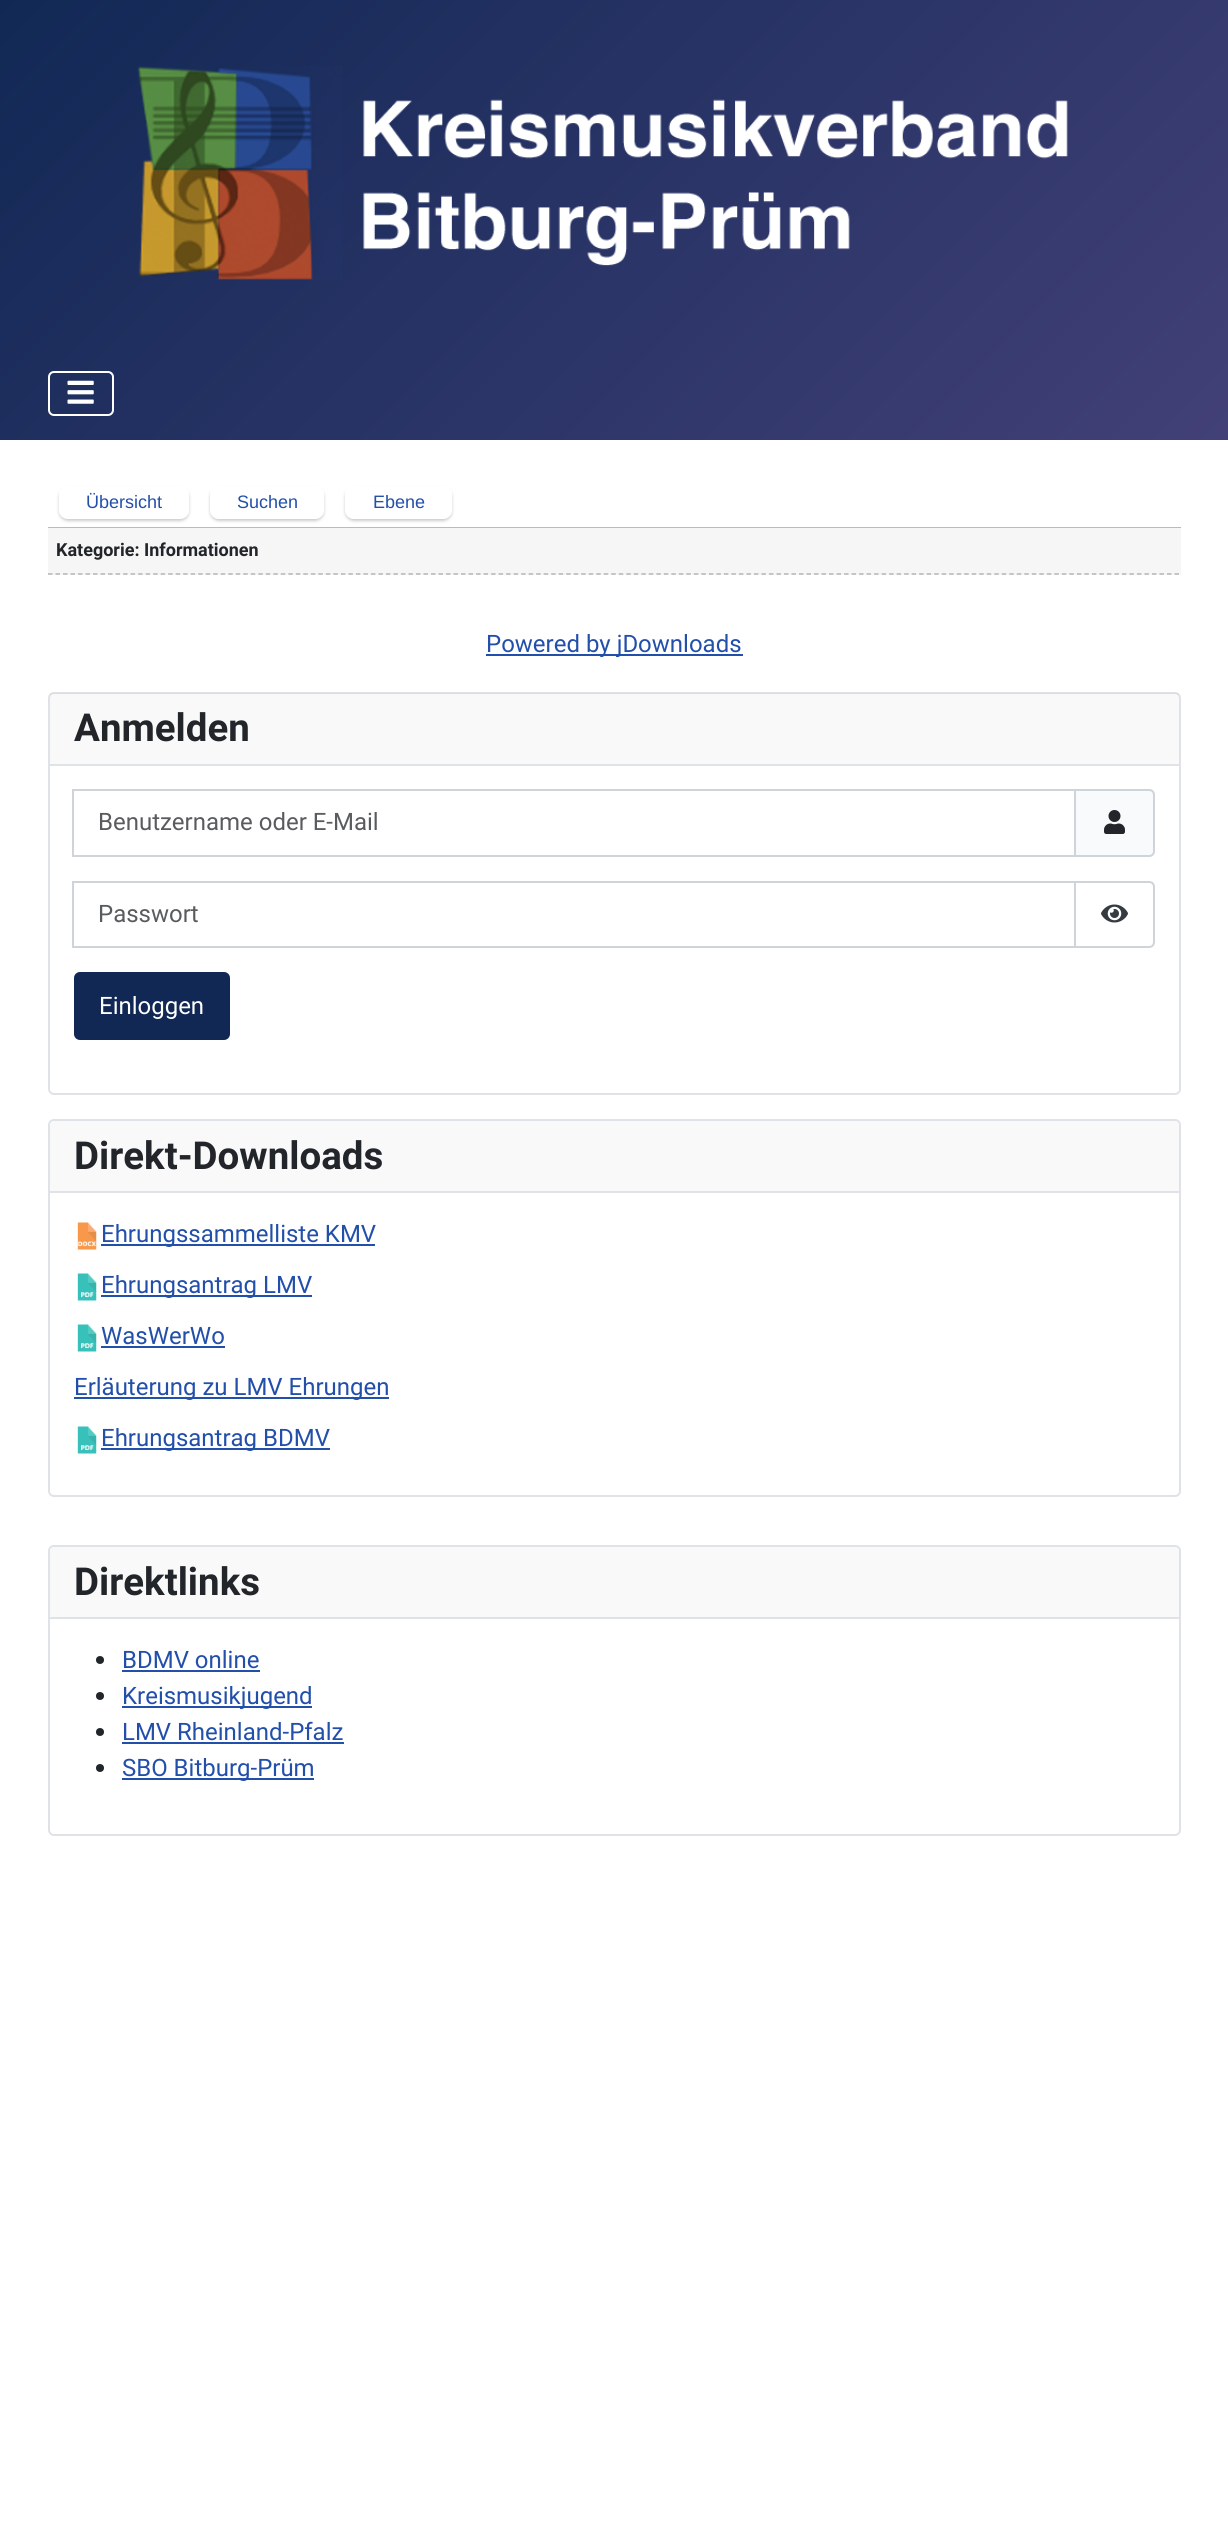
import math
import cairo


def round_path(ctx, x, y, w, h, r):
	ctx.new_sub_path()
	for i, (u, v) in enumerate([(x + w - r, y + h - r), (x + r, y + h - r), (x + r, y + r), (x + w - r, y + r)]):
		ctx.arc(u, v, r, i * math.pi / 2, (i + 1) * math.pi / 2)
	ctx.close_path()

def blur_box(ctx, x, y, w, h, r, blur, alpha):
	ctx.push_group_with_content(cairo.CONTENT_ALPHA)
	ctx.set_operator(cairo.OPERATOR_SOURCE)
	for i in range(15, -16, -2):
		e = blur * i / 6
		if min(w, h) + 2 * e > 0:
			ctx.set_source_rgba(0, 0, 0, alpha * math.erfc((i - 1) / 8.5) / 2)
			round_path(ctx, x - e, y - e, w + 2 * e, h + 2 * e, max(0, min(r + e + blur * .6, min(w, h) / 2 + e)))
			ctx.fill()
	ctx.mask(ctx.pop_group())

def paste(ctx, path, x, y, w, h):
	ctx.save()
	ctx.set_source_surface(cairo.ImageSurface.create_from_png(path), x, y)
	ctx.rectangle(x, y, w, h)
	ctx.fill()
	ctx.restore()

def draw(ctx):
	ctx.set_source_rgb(1, 1, 1)
	ctx.paint()
	gradient = cairo.LinearGradient(197, -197, 1031, 637)
	gradient.add_color_stop_rgba(0, 0.067, 0.157, 0.333, 1)
	gradient.add_color_stop_rgba(1, 0.259, 0.251, 0.467, 1)
	ctx.set_source(gradient)
	ctx.rectangle(0, 0, 1228, 440)
	ctx.fill()
	paste(ctx, 'media/1.png', 137, 66, 931, 214)
	round_path(ctx, 49, 372, 64, 43, 5)
	ctx.set_source_rgb(1, 1, 1)
	ctx.stroke()
	paste(ctx, 'media/2.png', 67, 380, 27, 24)
	ctx.set_source_rgb(0.733, 0.733, 0.733)
	ctx.rectangle(48, 527, 1133, 1)
	ctx.fill()
	ctx.save()
	ctx.set_fill_rule(cairo.FILL_RULE_EVEN_ODD)
	ctx.new_path()
	ctx.move_to(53, 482)
	ctx.line_to(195, 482)
	ctx.line_to(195, 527)
	ctx.line_to(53, 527)
	ctx.close_path()
	ctx.move_to(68, 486)
	ctx.line_to(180, 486)
	ctx.curve_to(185, 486, 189, 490, 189, 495)
	ctx.line_to(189, 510)
	ctx.curve_to(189, 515, 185, 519, 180, 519)
	ctx.line_to(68, 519)
	ctx.curve_to(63, 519, 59, 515, 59, 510)
	ctx.line_to(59, 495)
	ctx.curve_to(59, 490, 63, 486, 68, 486)
	ctx.close_path()
	ctx.clip()
	ctx.set_source_rgb(0, 0, 0)
	blur_box(ctx, 59, 488, 130, 33, 9, 1.5, 0.2)
	ctx.restore()
	ctx.select_font_face('Liberation Sans')
	ctx.set_font_size(18)
	ctx.set_source_rgb(0.133, 0.31, 0.667)
	ctx.move_to(86, 508)
	ctx.show_text('Übersicht')
	ctx.save()
	ctx.set_fill_rule(cairo.FILL_RULE_EVEN_ODD)
	ctx.new_path()
	ctx.move_to(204, 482)
	ctx.line_to(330, 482)
	ctx.line_to(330, 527)
	ctx.line_to(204, 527)
	ctx.close_path()
	ctx.move_to(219, 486)
	ctx.line_to(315, 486)
	ctx.curve_to(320, 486, 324, 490, 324, 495)
	ctx.line_to(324, 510)
	ctx.curve_to(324, 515, 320, 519, 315, 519)
	ctx.line_to(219, 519)
	ctx.curve_to(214, 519, 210, 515, 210, 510)
	ctx.line_to(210, 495)
	ctx.curve_to(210, 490, 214, 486, 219, 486)
	ctx.close_path()
	ctx.clip()
	ctx.set_source_rgb(0, 0, 0)
	blur_box(ctx, 210, 488, 114, 33, 9, 1.5, 0.2)
	ctx.restore()
	ctx.move_to(237, 508)
	ctx.show_text('Suchen')
	ctx.save()
	ctx.set_fill_rule(cairo.FILL_RULE_EVEN_ODD)
	ctx.new_path()
	ctx.move_to(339, 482)
	ctx.line_to(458, 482)
	ctx.line_to(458, 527)
	ctx.line_to(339, 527)
	ctx.close_path()
	ctx.move_to(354, 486)
	ctx.line_to(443, 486)
	ctx.curve_to(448, 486, 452, 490, 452, 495)
	ctx.line_to(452, 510)
	ctx.curve_to(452, 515, 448, 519, 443, 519)
	ctx.line_to(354, 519)
	ctx.curve_to(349, 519, 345, 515, 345, 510)
	ctx.line_to(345, 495)
	ctx.curve_to(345, 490, 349, 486, 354, 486)
	ctx.close_path()
	ctx.clip()
	ctx.set_source_rgb(0, 0, 0)
	blur_box(ctx, 345, 488, 107, 33, 9, 1.5, 0.2)
	ctx.restore()
	ctx.move_to(373, 508)
	ctx.show_text('Ebene')
	ctx.set_source_rgb(0.961, 0.961, 0.961)
	ctx.rectangle(48, 528, 1133, 47)
	ctx.fill()
	ctx.new_path()
	ctx.move_to(48, 574)
	ctx.line_to(1180.5, 574)
	ctx.set_source_rgb(0.71, 0.71, 0.71)
	ctx.set_line_width(1.5)
	ctx.set_dash([4.5, 3.01])
	ctx.stroke()
	ctx.select_font_face('Roboto', cairo.FONT_SLANT_NORMAL, cairo.FONT_WEIGHT_BOLD)
	ctx.set_source_rgb(0.133, 0.149, 0.165)
	ctx.move_to(56, 556)
	ctx.show_text('Kategorie: Informationen')
	ctx.set_source_rgb(0.133, 0.31, 0.667)
	ctx.rectangle(486, 654, 257, 2)
	ctx.fill()
	ctx.select_font_face('Roboto')
	ctx.set_font_size(24)
	ctx.move_to(486, 652)
	ctx.show_text('Powered by jDownloads')
	round_path(ctx, 49, 693, 1131, 401, 5)
	ctx.set_source_rgb(0.875, 0.89, 0.906)
	ctx.set_line_width(2)
	ctx.set_dash([])
	ctx.stroke()
	ctx.set_source_rgba(0.133, 0.149, 0.165, 0.03)
	ctx.rectangle(50, 693, 1129, 71)
	ctx.fill()
	ctx.set_source_rgb(0.875, 0.89, 0.906)
	ctx.rectangle(50, 764, 1129, 2)
	ctx.fill()
	ctx.select_font_face('Roboto', cairo.FONT_SLANT_NORMAL, cairo.FONT_WEIGHT_BOLD)
	ctx.set_font_size(38.5)
	ctx.set_source_rgb(0.133, 0.149, 0.165)
	ctx.move_to(74, 741)
	ctx.show_text('Anmelden')
	ctx.set_source_rgb(0.976, 0.98, 0.984)
	ctx.new_path()
	ctx.move_to(1075, 790)
	ctx.line_to(1149, 790)
	ctx.curve_to(1152, 790, 1154, 792, 1154, 795)
	ctx.line_to(1154, 851)
	ctx.curve_to(1154, 854, 1152, 856, 1149, 856)
	ctx.line_to(1075, 856)
	ctx.close_path()
	ctx.fill_preserve()
	ctx.set_source_rgb(0.808, 0.831, 0.855)
	ctx.stroke()
	ctx.rectangle(73, 790, 1002, 66)
	ctx.stroke()
	ctx.select_font_face('Roboto')
	ctx.set_font_size(24)
	ctx.set_source_rgb(0.349, 0.361, 0.373)
	ctx.move_to(98, 830)
	ctx.show_text('Benutzername oder E-Mail')
	paste(ctx, 'media/3.png', 1104, 810, 21, 24)
	ctx.rectangle(73, 882, 1002, 65)
	ctx.set_source_rgb(0.808, 0.831, 0.855)
	ctx.stroke()
	ctx.set_source_rgb(0.349, 0.361, 0.373)
	ctx.move_to(98, 922)
	ctx.show_text('Passwort')
	ctx.set_source_rgb(1, 1, 1)
	ctx.new_path()
	ctx.move_to(1075, 882)
	ctx.line_to(1149, 882)
	ctx.curve_to(1152, 882, 1154, 884, 1154, 887)
	ctx.line_to(1154, 942)
	ctx.curve_to(1154, 945, 1152, 947, 1149, 947)
	ctx.line_to(1075, 947)
	ctx.close_path()
	ctx.fill_preserve()
	ctx.set_source_rgb(0.808, 0.831, 0.855)
	ctx.stroke()
	paste(ctx, 'media/4.png', 1101, 904, 27, 19)
	ctx.set_source_rgb(0.067, 0.157, 0.333)
	round_path(ctx, 75, 973, 154, 66, 5)
	ctx.fill_preserve()
	ctx.stroke()
	ctx.set_source_rgb(1, 1, 1)
	ctx.move_to(99, 1014)
	ctx.show_text('Einloggen')
	round_path(ctx, 49, 1120, 1131, 376, 5)
	ctx.set_source_rgb(0.875, 0.89, 0.906)
	ctx.stroke()
	ctx.set_source_rgb(0.976, 0.976, 0.976)
	ctx.new_path()
	ctx.move_to(55, 1121)
	ctx.line_to(1174, 1121)
	ctx.curve_to(1177, 1121, 1179, 1123, 1179, 1126)
	ctx.line_to(1179, 1193)
	ctx.line_to(50, 1193)
	ctx.line_to(50, 1126)
	ctx.curve_to(50, 1123, 52, 1121, 55, 1121)
	ctx.close_path()
	ctx.fill()
	ctx.set_source_rgb(0.875, 0.89, 0.906)
	ctx.rectangle(50, 1191, 1129, 2)
	ctx.fill()
	ctx.select_font_face('Roboto', cairo.FONT_SLANT_NORMAL, cairo.FONT_WEIGHT_BOLD)
	ctx.set_font_size(38.5)
	ctx.set_source_rgb(0.133, 0.149, 0.165)
	ctx.move_to(74, 1169)
	ctx.show_text('Direkt-Downloads')
	paste(ctx, 'media/5.png', 77, 1222, 20, 28)
	ctx.set_source_rgb(0.133, 0.31, 0.667)
	ctx.rectangle(101, 1244, 274, 2)
	ctx.fill()
	ctx.select_font_face('Roboto')
	ctx.set_font_size(24)
	ctx.move_to(101, 1242)
	ctx.show_text('Ehrungssammelliste KMV')
	paste(ctx, 'media/6.png', 77, 1273, 20, 28)
	ctx.rectangle(101, 1295, 211, 2)
	ctx.fill()
	ctx.move_to(101, 1293)
	ctx.show_text('Ehrungsantrag LMV')
	paste(ctx, 'media/6.png', 77, 1324, 20, 28)
	ctx.move_to(101, 1344)
	ctx.show_text('WasWerWo')
	ctx.rectangle(101, 1346, 124, 2)
	ctx.fill()
	ctx.rectangle(74, 1397, 315, 2)
	ctx.fill()
	ctx.move_to(74, 1395)
	ctx.show_text('Erläuterung zu LMV Ehrungen')
	paste(ctx, 'media/6.png', 77, 1426, 20, 28)
	ctx.rectangle(101, 1448, 229, 2)
	ctx.fill()
	ctx.move_to(101, 1446)
	ctx.show_text('Ehrungsantrag BDMV')
	round_path(ctx, 49, 1546, 1131, 289, 5)
	ctx.set_source_rgb(0.875, 0.89, 0.906)
	ctx.stroke()
	ctx.set_source_rgb(0.976, 0.976, 0.976)
	ctx.new_path()
	ctx.move_to(55, 1547)
	ctx.line_to(1174, 1547)
	ctx.curve_to(1177, 1547, 1179, 1549, 1179, 1552)
	ctx.line_to(1179, 1619)
	ctx.line_to(50, 1619)
	ctx.line_to(50, 1552)
	ctx.curve_to(50, 1549, 52, 1547, 55, 1547)
	ctx.close_path()
	ctx.fill()
	ctx.set_source_rgb(0.875, 0.89, 0.906)
	ctx.rectangle(50, 1617, 1129, 2)
	ctx.fill()
	ctx.select_font_face('Roboto', cairo.FONT_SLANT_NORMAL, cairo.FONT_WEIGHT_BOLD)
	ctx.set_font_size(38.5)
	ctx.set_source_rgb(0.133, 0.149, 0.165)
	ctx.move_to(74, 1595)
	ctx.show_text('Direktlinks')
	ctx.new_path()
	ctx.arc(100, 1660, 4, 0, 2 * math.pi)
	ctx.fill()
	ctx.select_font_face('Roboto')
	ctx.set_font_size(24)
	ctx.set_source_rgb(0.133, 0.31, 0.667)
	ctx.move_to(122, 1668)
	ctx.show_text('BDMV online')
	ctx.rectangle(122, 1670, 138, 2)
	ctx.fill()
	ctx.set_source_rgb(0.133, 0.149, 0.165)
	ctx.arc(100, 1696, 4, 0, 2 * math.pi)
	ctx.fill()
	ctx.set_source_rgb(0.133, 0.31, 0.667)
	ctx.rectangle(122, 1706, 190, 2)
	ctx.fill()
	ctx.move_to(122, 1704)
	ctx.show_text('Kreismusikjugend')
	ctx.set_source_rgb(0.133, 0.149, 0.165)
	ctx.new_path()
	ctx.arc(100, 1732, 4, 0, 2 * math.pi)
	ctx.fill()
	ctx.set_source_rgb(0.133, 0.31, 0.667)
	ctx.move_to(122, 1740)
	ctx.show_text('LMV Rheinland-Pfalz')
	ctx.rectangle(122, 1742, 222, 2)
	ctx.fill()
	ctx.set_source_rgb(0.133, 0.149, 0.165)
	ctx.arc(100, 1768, 4, 0, 2 * math.pi)
	ctx.fill()
	ctx.set_source_rgb(0.133, 0.31, 0.667)
	ctx.rectangle(122, 1778, 192, 2)
	ctx.fill()
	ctx.move_to(122, 1776)
	ctx.show_text('SBO Bitburg-Prüm')


surface = cairo.ImageSurface(cairo.FORMAT_RGB24, 1228, 2528)
ctx = cairo.Context(surface)
options = cairo.FontOptions()
options.set_hint_metrics(cairo.HINT_METRICS_OFF)
options.set_hint_style(cairo.HINT_STYLE_NONE)
ctx.set_font_options(options)
ctx.set_miter_limit(4)
draw(ctx)
surface.write_to_png('image.png')
